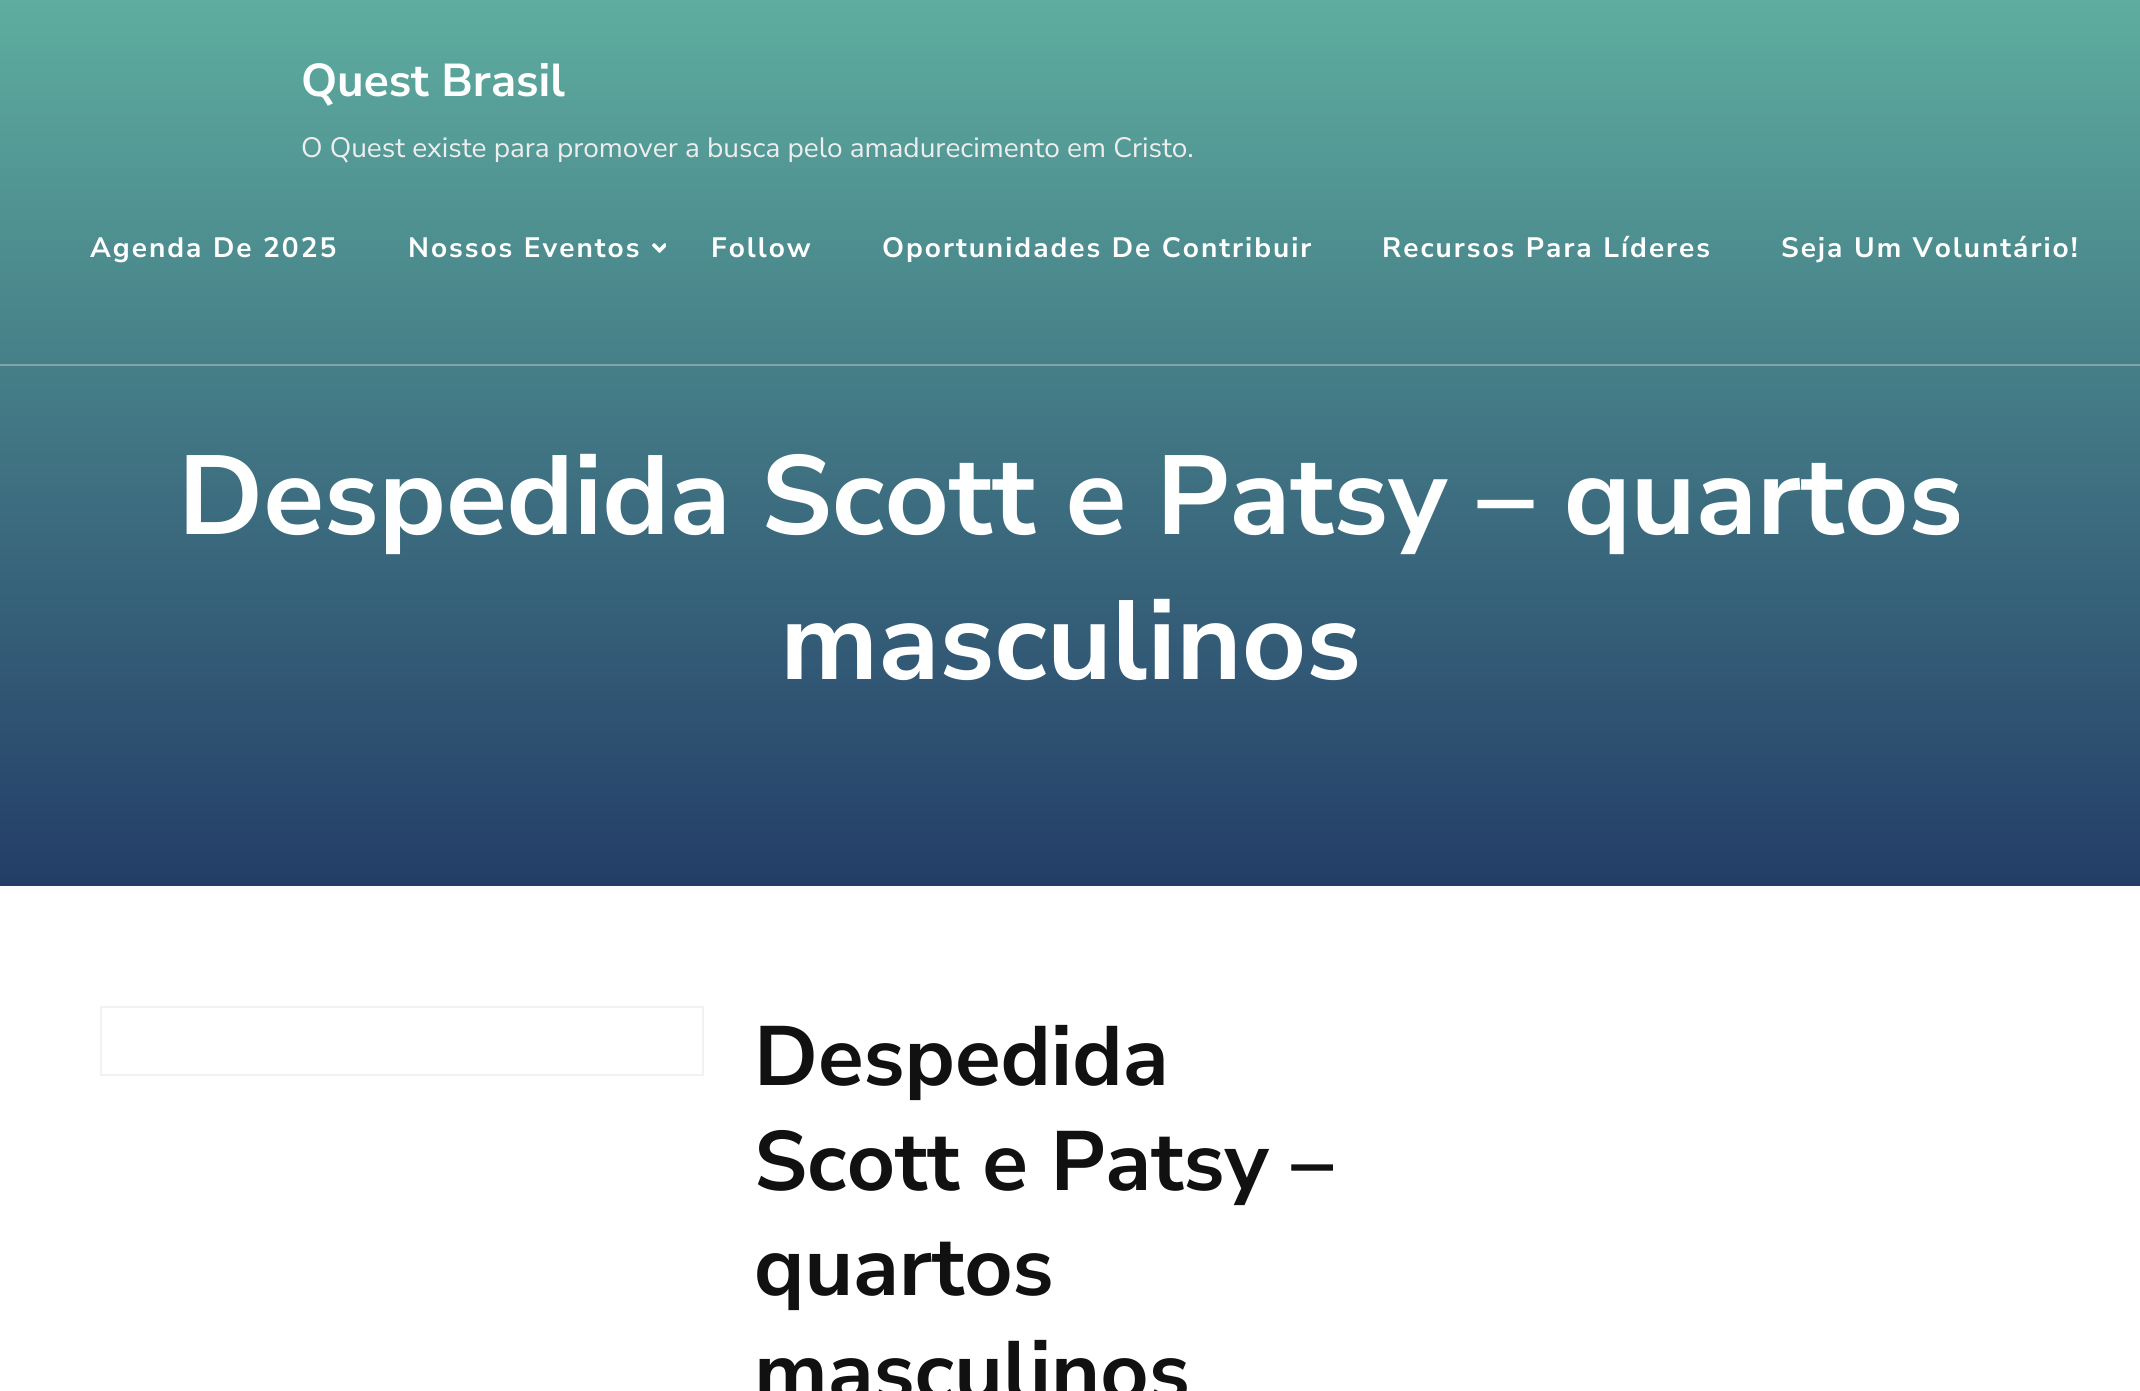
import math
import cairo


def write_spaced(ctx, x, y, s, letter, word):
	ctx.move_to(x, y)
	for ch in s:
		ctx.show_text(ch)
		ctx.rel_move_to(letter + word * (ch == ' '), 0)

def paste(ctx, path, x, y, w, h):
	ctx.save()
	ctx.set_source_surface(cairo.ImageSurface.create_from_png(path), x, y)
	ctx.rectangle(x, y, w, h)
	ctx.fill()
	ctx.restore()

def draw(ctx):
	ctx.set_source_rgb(1, 1, 1)
	ctx.paint()
	gradient = cairo.LinearGradient(1070, 0, 1070, 886)
	gradient.add_color_stop_rgba(0, 0.369, 0.678, 0.624, 1)
	gradient.add_color_stop_rgba(1, 0.137, 0.239, 0.404, 1)
	ctx.set_source(gradient)
	ctx.rectangle(0, 0, 2140, 886)
	ctx.fill()
	ctx.set_source_rgb(0.494, 0.647, 0.675)
	ctx.rectangle(0, 364, 2140, 2)
	ctx.fill()
	ctx.select_font_face('Nunito Sans', cairo.FONT_SLANT_NORMAL, cairo.FONT_WEIGHT_BOLD)
	ctx.set_font_size(46)
	ctx.set_source_rgb(1, 1, 1)
	ctx.move_to(301, 96)
	ctx.show_text('Quest Brasil')
	ctx.select_font_face('Nunito Sans')
	ctx.set_font_size(28)
	ctx.set_source_rgb(0.933, 0.933, 0.933)
	ctx.move_to(301, 157)
	ctx.show_text('O Quest existe para promover a busca pelo amadurecimento em Cristo.')
	ctx.select_font_face('Nunito Sans', cairo.FONT_SLANT_NORMAL, cairo.FONT_WEIGHT_BOLD)
	ctx.set_source_rgb(1, 1, 1)
	write_spaced(ctx, 90, 257, 'Agenda De 2025', 2, 0)
	write_spaced(ctx, 408, 257, 'Nossos Eventos', 2, 0)
	paste(ctx, 'media/1.png', 652, 243, 14, 10)
	for x, y, s in [
		(711, 257, 'Follow'),
		(882, 257, 'Oportunidades De Contribuir'),
		(1382, 257, 'Recursos Para Líderes'),
		(1781, 257, 'Seja Um Voluntário!'),
	]:
		write_spaced(ctx, x, y, s, 2, 0)
	ctx.set_font_size(112)
	ctx.move_to(178, 534)
	ctx.show_text('Despedida Scott e Patsy – quartos')
	ctx.move_to(780, 679)
	ctx.show_text('masculinos')
	ctx.rectangle(101, 1007, 602, 68)
	ctx.set_source_rgb(0.949, 0.949, 0.949)
	ctx.stroke()
	ctx.set_font_size(84)
	ctx.set_source_rgb(0.067, 0.067, 0.067)
	for x, y, s in [
		(754, 1085, 'Despedida'),
		(754, 1190, 'Scott e Patsy –'),
		(754, 1295, 'quartos'),
		(754, 1400, 'masculinos'),
	]:
		ctx.move_to(x, y)
		ctx.show_text(s)


surface = cairo.ImageSurface(cairo.FORMAT_RGB24, 2140, 1391)
ctx = cairo.Context(surface)
options = cairo.FontOptions()
options.set_hint_metrics(cairo.HINT_METRICS_OFF)
options.set_hint_style(cairo.HINT_STYLE_NONE)
ctx.set_font_options(options)
ctx.set_miter_limit(4)
draw(ctx)
surface.write_to_png('image.png')
